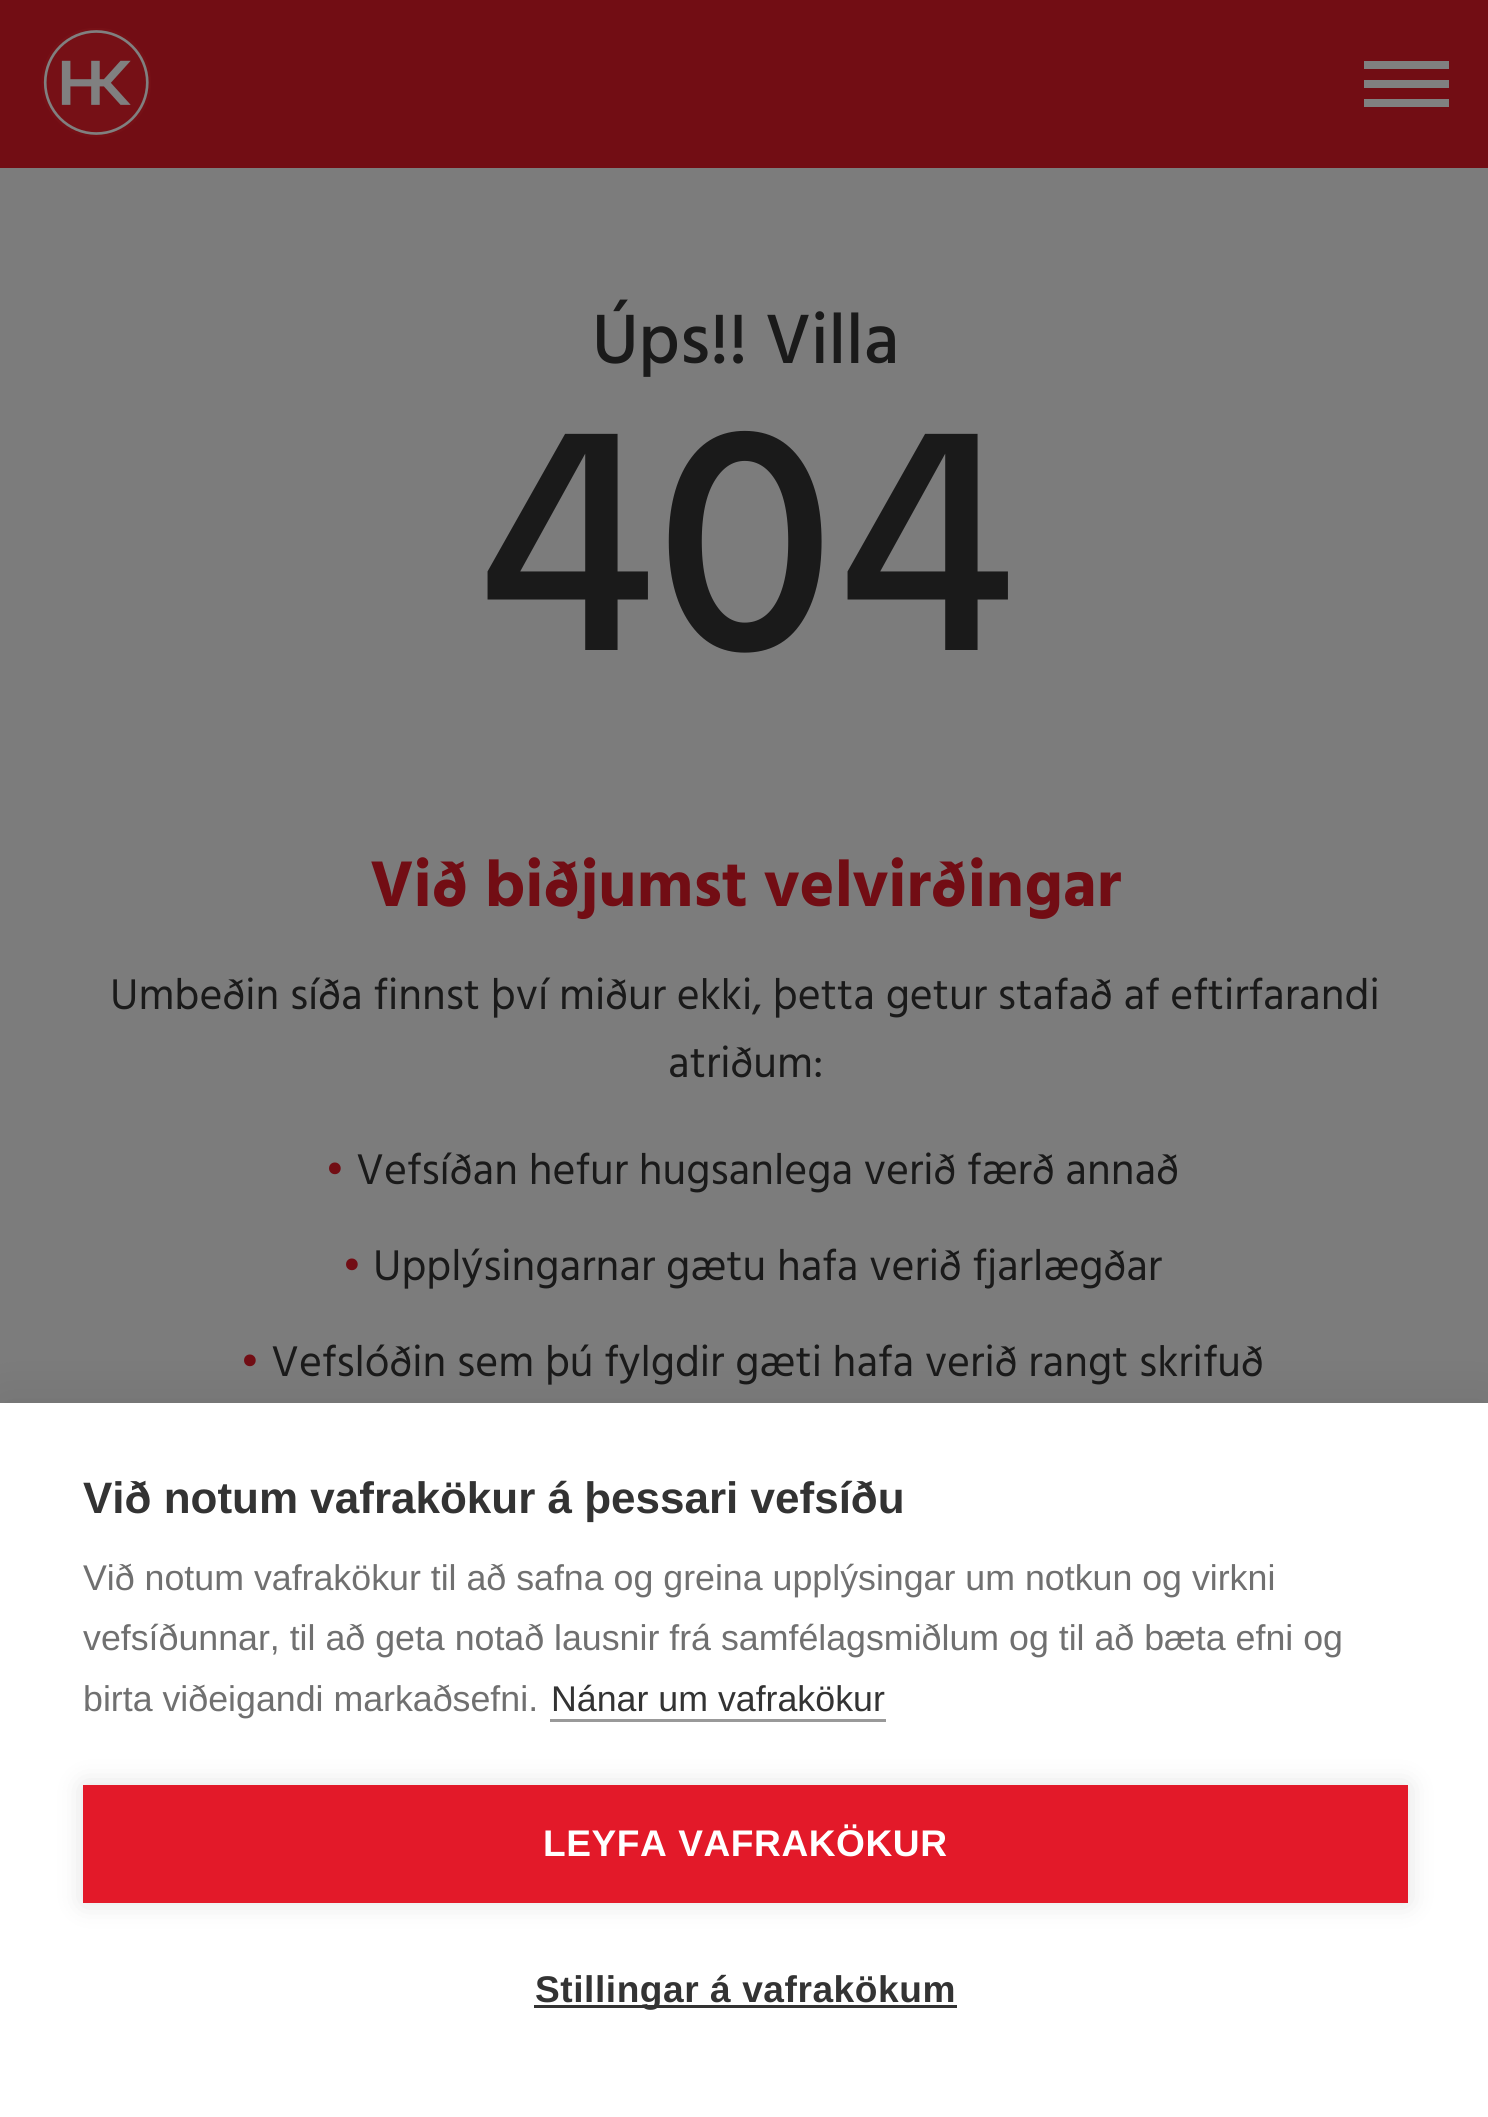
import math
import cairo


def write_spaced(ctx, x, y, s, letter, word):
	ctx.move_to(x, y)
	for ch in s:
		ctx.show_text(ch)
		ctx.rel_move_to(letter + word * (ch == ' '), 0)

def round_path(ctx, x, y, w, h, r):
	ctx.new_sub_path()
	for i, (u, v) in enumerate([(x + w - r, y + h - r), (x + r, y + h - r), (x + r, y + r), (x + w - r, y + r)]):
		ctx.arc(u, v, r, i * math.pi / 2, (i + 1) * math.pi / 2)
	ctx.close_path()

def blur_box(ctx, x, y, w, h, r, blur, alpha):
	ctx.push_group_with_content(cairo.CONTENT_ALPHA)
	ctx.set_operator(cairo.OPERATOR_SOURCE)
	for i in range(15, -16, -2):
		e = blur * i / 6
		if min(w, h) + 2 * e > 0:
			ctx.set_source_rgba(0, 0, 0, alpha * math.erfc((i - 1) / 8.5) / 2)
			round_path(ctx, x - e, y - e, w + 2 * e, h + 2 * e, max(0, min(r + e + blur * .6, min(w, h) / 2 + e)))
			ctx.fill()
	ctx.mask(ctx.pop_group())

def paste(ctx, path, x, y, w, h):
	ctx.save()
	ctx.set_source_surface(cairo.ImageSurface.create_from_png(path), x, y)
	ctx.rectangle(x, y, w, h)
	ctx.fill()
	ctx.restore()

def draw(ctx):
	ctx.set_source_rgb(0.486, 0.486, 0.486)
	ctx.paint()
	ctx.set_source_rgb(0.447, 0.051, 0.082)
	ctx.rectangle(0, 0, 1488, 168)
	ctx.fill()
	paste(ctx, 'media/1.png', 41, 28, 110, 109)
	ctx.set_source_rgb(0.502, 0.502, 0.502)
	ctx.rectangle(1364, 61, 85, 8)
	ctx.rectangle(1364, 80, 85, 8)
	ctx.rectangle(1364, 99, 85, 8)
	ctx.fill()
	ctx.select_font_face('Hind Medium')
	ctx.set_font_size(71.5)
	ctx.set_source_rgb(0.102, 0.102, 0.102)
	ctx.move_to(592, 363)
	ctx.show_text('Úps!! Villa')
	ctx.set_font_size(330)
	ctx.move_to(475, 650)
	ctx.show_text('404')
	ctx.select_font_face('Hind', cairo.FONT_SLANT_NORMAL, cairo.FONT_WEIGHT_BOLD)
	ctx.set_font_size(66)
	ctx.set_source_rgb(0.447, 0.051, 0.082)
	ctx.move_to(370, 906)
	ctx.show_text('Við biðjumst velvirðingar')
	ctx.select_font_face('Hind')
	ctx.set_font_size(44)
	ctx.set_source_rgb(0.102, 0.102, 0.102)
	ctx.move_to(110, 1009)
	ctx.show_text('Umbeðin síða finnst því miður ekki, þetta getur stafað af eftirfarandi')
	ctx.move_to(668, 1077)
	ctx.show_text('atriðum:')
	ctx.set_source_rgb(0.447, 0.051, 0.082)
	ctx.move_to(325, 1184)
	ctx.show_text('•')
	ctx.set_source_rgb(0.102, 0.102, 0.102)
	ctx.move_to(356, 1184)
	ctx.show_text('Vefsíðan hefur hugsanlega verið færð annað')
	ctx.set_source_rgb(0.447, 0.051, 0.082)
	ctx.move_to(342, 1280)
	ctx.show_text('•')
	ctx.set_source_rgb(0.102, 0.102, 0.102)
	ctx.move_to(373, 1280)
	ctx.show_text('Upplýsingarnar gætu hafa verið fjarlægðar')
	ctx.set_source_rgb(0.447, 0.051, 0.082)
	ctx.move_to(240, 1376)
	ctx.show_text('•')
	ctx.set_source_rgb(0.102, 0.102, 0.102)
	ctx.move_to(271, 1376)
	ctx.show_text('Vefslóðin sem þú fylgdir gæti hafa verið rangt skrifuð')
	ctx.set_source_rgb(0, 0, 0)
	blur_box(ctx, 0, 1403, 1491, 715, 0, 27.5, 0.1)
	ctx.set_source_rgb(1, 1, 1)
	ctx.rectangle(0, 1403, 1488, 714)
	ctx.fill()
	ctx.select_font_face('Liberation Sans', cairo.FONT_SLANT_NORMAL, cairo.FONT_WEIGHT_BOLD)
	ctx.set_source_rgb(0.2, 0.2, 0.2)
	ctx.move_to(83, 1513)
	ctx.show_text('Við notum vafrakökur á þessari vefsíðu')
	ctx.select_font_face('Liberation Sans')
	ctx.set_font_size(35.75)
	ctx.set_source_rgb(0.439, 0.439, 0.439)
	for x, y, s in [
		(83, 1590, 'Við notum vafrakökur til að safna og greina upplýsingar um notkun og virkni'),
		(83, 1650, 'vefsíðunnar, til að geta notað lausnir frá samfélagsmiðlum og til að bæta efni og'),
		(83, 1711, 'birta viðeigandi markaðsefni.'),
	]:
		ctx.move_to(x, y)
		ctx.show_text(s)
	ctx.set_source_rgb(0.2, 0.2, 0.2)
	ctx.move_to(551, 1711)
	ctx.show_text('Nánar um vafrakökur')
	ctx.set_source_rgb(0.6, 0.6, 0.6)
	ctx.rectangle(550, 1719, 336, 3)
	ctx.fill()
	ctx.set_source_rgb(0, 0, 0)
	blur_box(ctx, 83, 1785, 1325, 118, 0, 14, 0.12)
	ctx.set_source_rgb(0.89, 0.098, 0.161)
	ctx.rectangle(83, 1785, 1325, 118)
	ctx.fill()
	ctx.select_font_face('Liberation Sans', cairo.FONT_SLANT_NORMAL, cairo.FONT_WEIGHT_BOLD)
	ctx.set_font_size(37.1)
	ctx.set_source_rgb(1, 1, 1)
	write_spaced(ctx, 543, 1856, 'LEYFA VAFRAKÖKUR', 0.55, 0)
	ctx.set_source_rgb(0.2, 0.2, 0.2)
	ctx.rectangle(534, 2005, 423, 3)
	ctx.fill()
	write_spaced(ctx, 535, 2002, 'Stillingar á vafrakökum', 0.55, 0)


surface = cairo.ImageSurface(cairo.FORMAT_RGB24, 1488, 2117)
ctx = cairo.Context(surface)
options = cairo.FontOptions()
options.set_hint_metrics(cairo.HINT_METRICS_OFF)
options.set_hint_style(cairo.HINT_STYLE_NONE)
ctx.set_font_options(options)
ctx.set_miter_limit(4)
draw(ctx)
surface.write_to_png('image.png')
